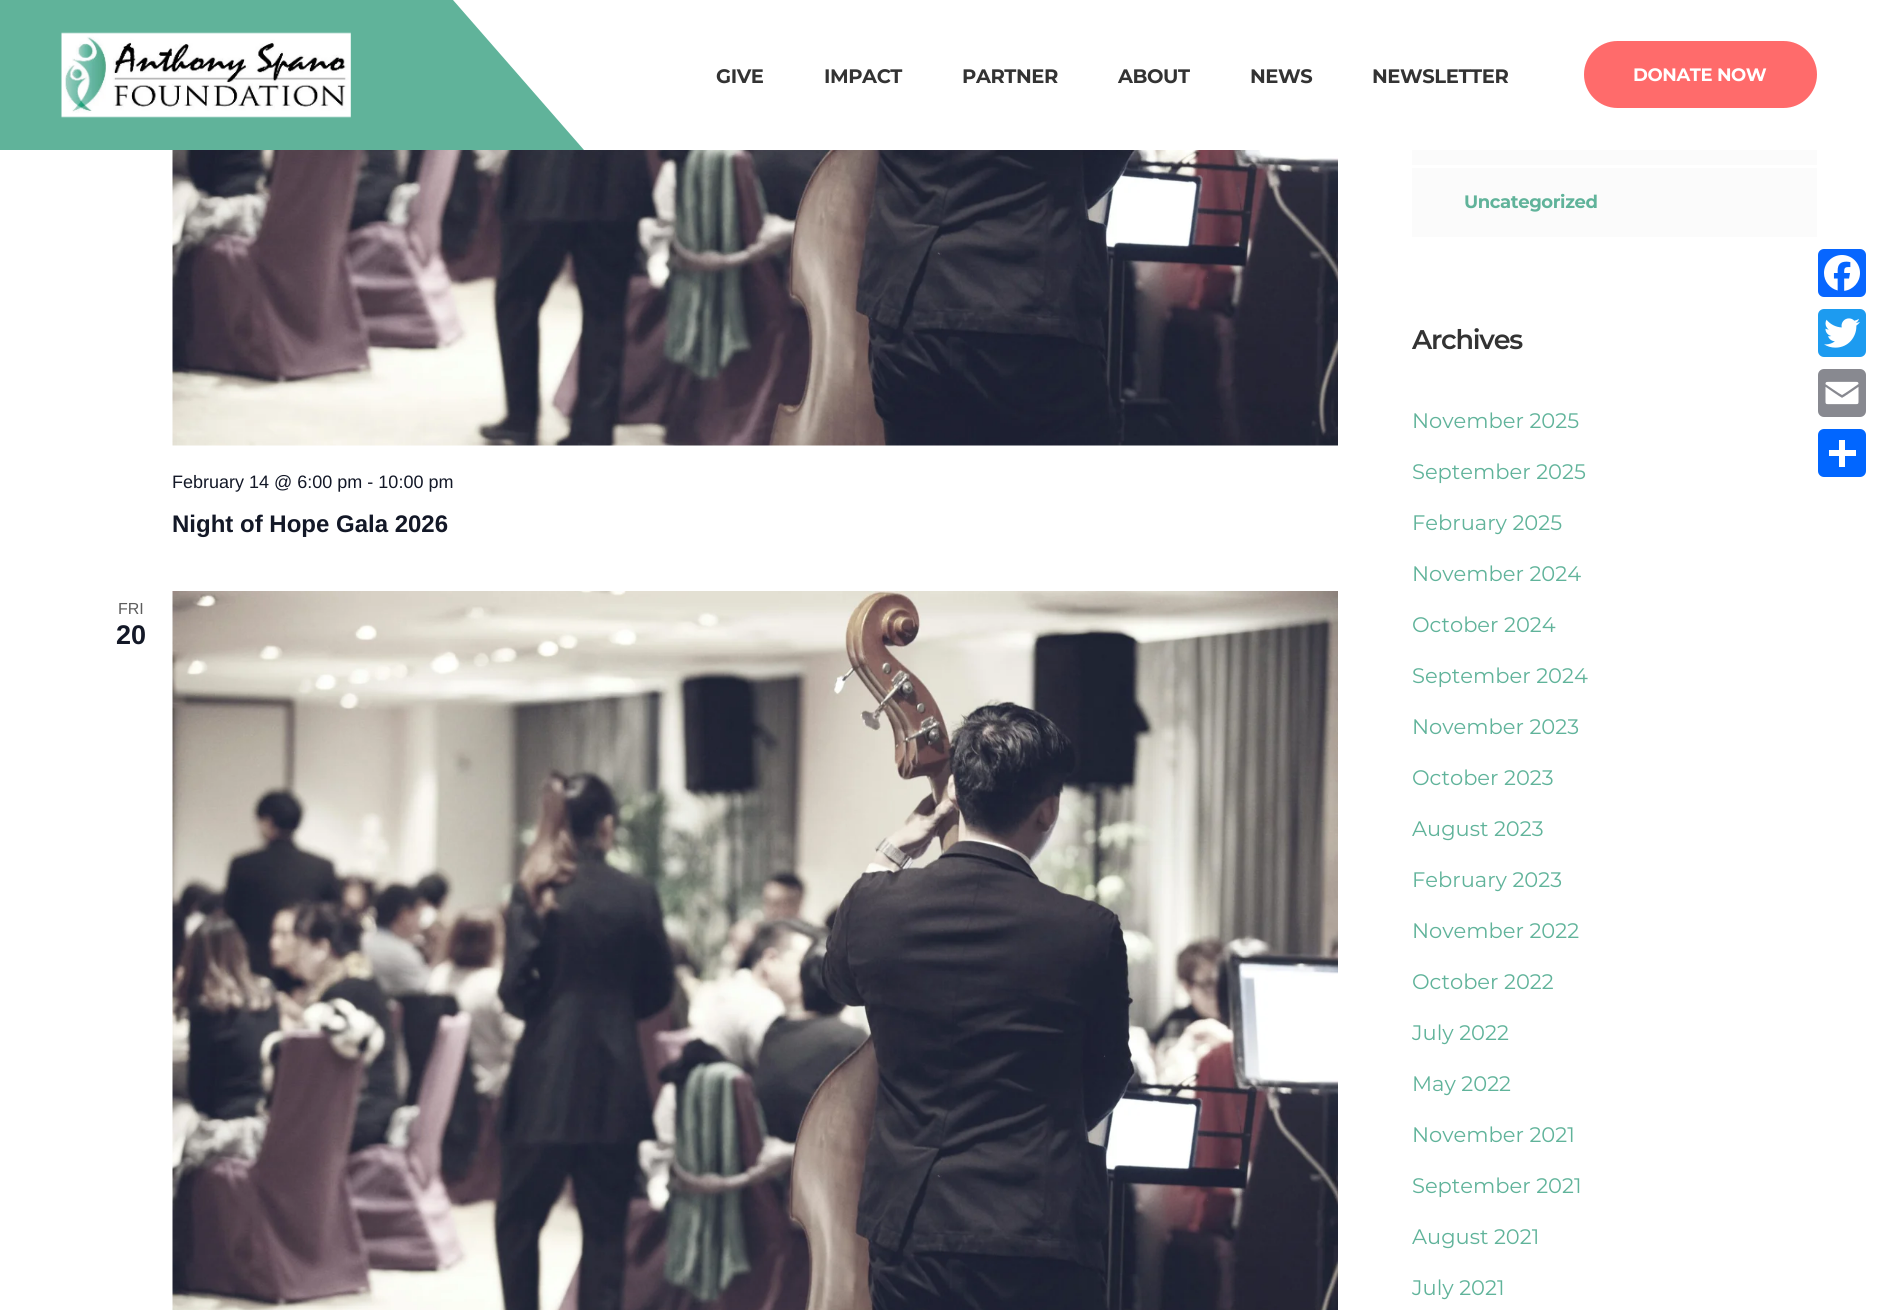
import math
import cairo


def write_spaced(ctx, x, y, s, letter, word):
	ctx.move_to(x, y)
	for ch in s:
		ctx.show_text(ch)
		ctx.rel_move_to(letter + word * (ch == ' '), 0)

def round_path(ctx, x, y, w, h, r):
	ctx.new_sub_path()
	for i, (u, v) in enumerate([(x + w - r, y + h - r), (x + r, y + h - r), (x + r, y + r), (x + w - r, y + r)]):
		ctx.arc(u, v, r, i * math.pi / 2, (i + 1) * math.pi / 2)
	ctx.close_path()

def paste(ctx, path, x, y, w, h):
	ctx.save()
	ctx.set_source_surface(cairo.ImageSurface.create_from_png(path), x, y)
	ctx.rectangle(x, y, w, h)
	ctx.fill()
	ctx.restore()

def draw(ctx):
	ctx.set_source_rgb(1, 1, 1)
	ctx.paint()
	ctx.set_source_rgb(0.376, 0.702, 0.604)
	ctx.rectangle(0, 0, 453, 150)
	ctx.fill()
	paste(ctx, 'media/1.png', 61, 32, 290, 86)
	ctx.new_path()
	ctx.move_to(584, 150)
	ctx.line_to(453, 150)
	ctx.line_to(453, 0)
	ctx.close_path()
	ctx.fill()
	ctx.select_font_face('Montserrat', cairo.FONT_SLANT_NORMAL, cairo.FONT_WEIGHT_BOLD)
	ctx.set_font_size(19.5)
	ctx.set_source_rgb(0.2, 0.2, 0.2)
	for x, y, s in [
		(716, 83, 'GIVE'),
		(824, 83, 'IMPACT'),
		(962, 83, 'PARTNER'),
		(1118, 83, 'ABOUT'),
		(1250, 83, 'NEWS'),
		(1372, 83, 'NEWSLETTER'),
	]:
		write_spaced(ctx, x, y, s, -0.4, 0)
	ctx.set_source_rgb(1, 0.42, 0.42)
	round_path(ctx, 1585, 42, 231, 65, 32.5)
	ctx.fill_preserve()
	ctx.stroke()
	ctx.set_font_size(18)
	ctx.set_source_rgb(1, 1, 1)
	write_spaced(ctx, 1633, 81, 'DONATE NOW', -0.4, 0)
	paste(ctx, 'media/2.png', 172, 150, 1166, 296)
	ctx.select_font_face('Liberation Sans')
	ctx.set_source_rgb(0.078, 0.094, 0.153)
	ctx.move_to(172, 488)
	ctx.show_text('February 14 @ 6:00 pm - 10:00 pm')
	ctx.select_font_face('Liberation Sans', cairo.FONT_SLANT_NORMAL, cairo.FONT_WEIGHT_BOLD)
	ctx.set_font_size(24)
	ctx.move_to(172, 532)
	ctx.show_text('Night of Hope Gala 2026')
	ctx.select_font_face('Liberation Sans')
	ctx.set_font_size(16)
	ctx.set_source_rgb(0.365, 0.365, 0.365)
	ctx.move_to(118, 614)
	ctx.show_text('FRI')
	ctx.select_font_face('Liberation Sans', cairo.FONT_SLANT_NORMAL, cairo.FONT_WEIGHT_BOLD)
	ctx.set_font_size(27)
	ctx.set_source_rgb(0.078, 0.094, 0.153)
	ctx.move_to(116, 644)
	ctx.show_text('20')
	paste(ctx, 'media/3.png', 172, 591, 1166, 719)
	ctx.set_source_rgb(0.984, 0.984, 0.984)
	ctx.rectangle(1412, 150, 405, 15)
	ctx.fill()
	ctx.rectangle(1412, 168, 405, 69)
	ctx.fill()
	ctx.select_font_face('Montserrat', cairo.FONT_SLANT_NORMAL, cairo.FONT_WEIGHT_BOLD)
	ctx.set_font_size(18)
	ctx.set_source_rgb(0.376, 0.702, 0.604)
	write_spaced(ctx, 1464, 208, 'Uncategorized', -0.4, 0)
	ctx.select_font_face('Montserrat SemiBold')
	ctx.set_font_size(27)
	ctx.set_source_rgb(0.2, 0.2, 0.2)
	write_spaced(ctx, 1412, 349, 'Archives', -1.25, 0)
	ctx.select_font_face('Montserrat')
	ctx.set_font_size(21)
	ctx.set_source_rgb(0.376, 0.702, 0.604)
	for x, y, s in [
		(1412, 428, 'November 2025'),
		(1412, 479, 'September 2025'),
		(1412, 530, 'February 2025'),
		(1412, 581, 'November 2024'),
		(1412, 632, 'October 2024'),
		(1412, 683, 'September 2024'),
		(1412, 734, 'November 2023'),
		(1412, 785, 'October 2023'),
		(1412, 836, 'August 2023'),
		(1412, 887, 'February 2023'),
		(1412, 938, 'November 2022'),
		(1412, 989, 'October 2022'),
		(1412, 1040, 'July 2022'),
		(1412, 1091, 'May 2022'),
		(1412, 1142, 'November 2021'),
		(1412, 1193, 'September 2021'),
		(1412, 1244, 'August 2021'),
		(1412, 1295, 'July 2021'),
	]:
		ctx.move_to(x, y)
		ctx.show_text(s)
	ctx.set_source_rgb(0.031, 0.4, 1)
	round_path(ctx, 1818, 249, 48, 48, 6)
	ctx.fill()
	paste(ctx, 'media/4.png', 1824, 255, 36, 36)
	ctx.set_source_rgb(0.114, 0.608, 0.941)
	round_path(ctx, 1818, 309, 48, 48, 6)
	ctx.fill()
	paste(ctx, 'media/5.png', 1824, 318, 36, 30)
	ctx.set_source_rgb(0.533, 0.537, 0.565)
	round_path(ctx, 1818, 369, 48, 48, 6)
	ctx.fill()
	paste(ctx, 'media/6.png', 1825, 381, 34, 24)
	ctx.set_source_rgb(0.004, 0.4, 1)
	round_path(ctx, 1818, 429, 48, 48, 6)
	ctx.fill()
	ctx.set_source_rgb(1, 1, 1)
	ctx.rectangle(1839, 440, 6, 27)
	ctx.fill()
	ctx.rectangle(1829, 450, 27, 6)
	ctx.fill()


surface = cairo.ImageSurface(cairo.FORMAT_RGB24, 1878, 1310)
ctx = cairo.Context(surface)
options = cairo.FontOptions()
options.set_hint_metrics(cairo.HINT_METRICS_OFF)
options.set_hint_style(cairo.HINT_STYLE_NONE)
ctx.set_font_options(options)
ctx.set_miter_limit(4)
draw(ctx)
surface.write_to_png('image.png')
